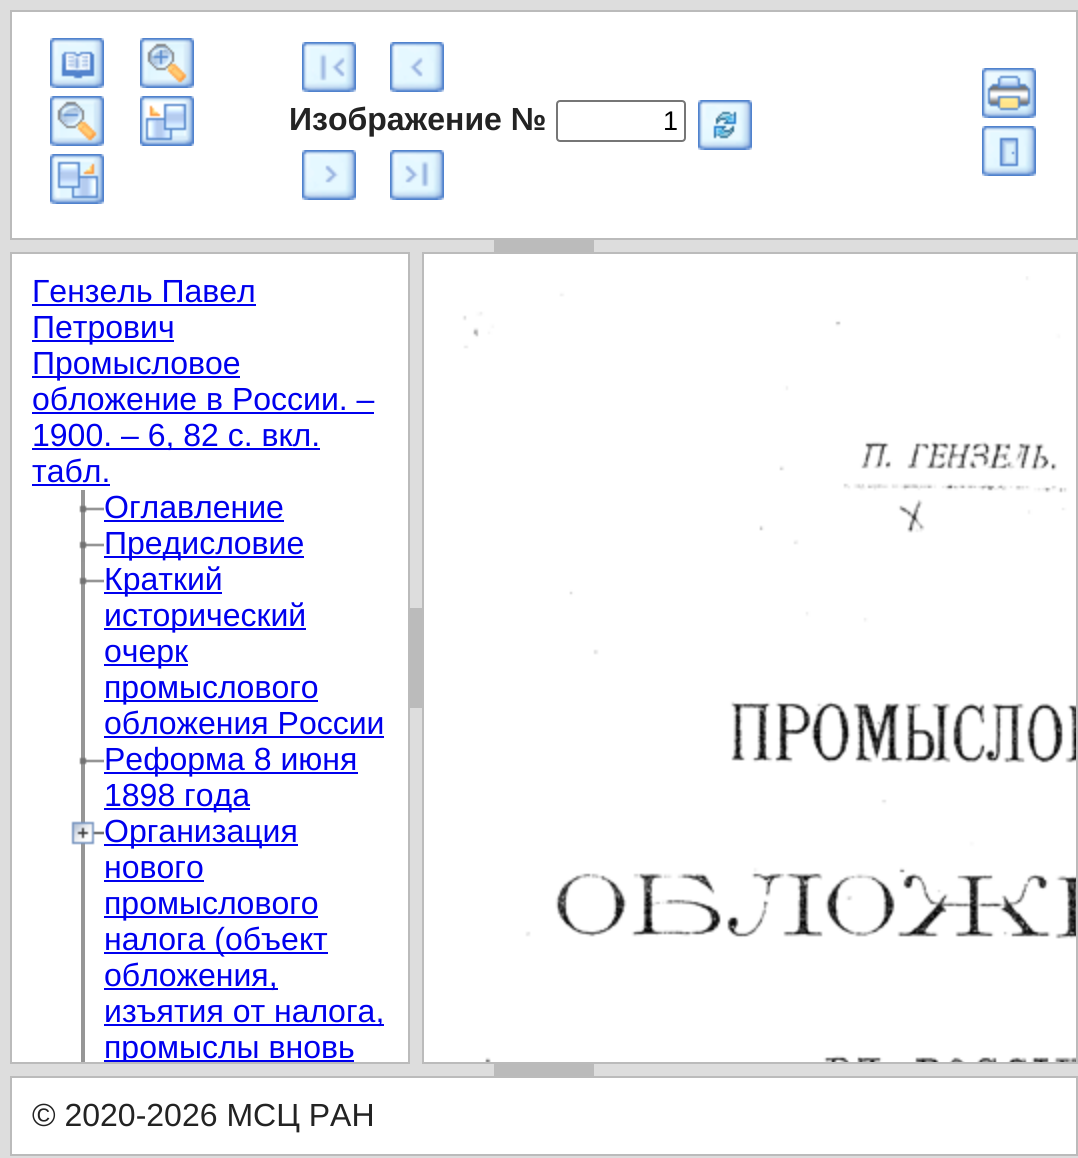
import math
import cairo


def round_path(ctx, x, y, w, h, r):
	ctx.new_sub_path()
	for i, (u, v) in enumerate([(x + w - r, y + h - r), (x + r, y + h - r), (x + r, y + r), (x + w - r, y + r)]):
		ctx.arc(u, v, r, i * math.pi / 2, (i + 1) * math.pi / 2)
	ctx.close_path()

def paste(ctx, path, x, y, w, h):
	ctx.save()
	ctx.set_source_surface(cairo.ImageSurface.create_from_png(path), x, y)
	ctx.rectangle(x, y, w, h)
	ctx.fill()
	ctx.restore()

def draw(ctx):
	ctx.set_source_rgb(0.867, 0.867, 0.867)
	ctx.paint()
	ctx.set_source_rgb(1, 1, 1)
	ctx.rectangle(11, 11, 1066, 228)
	ctx.fill_preserve()
	ctx.set_source_rgb(0.733, 0.733, 0.733)
	ctx.stroke()
	paste(ctx, 'media/1.png', 50, 38, 54, 50)
	paste(ctx, 'media/2.png', 140, 38, 54, 50)
	paste(ctx, 'media/3.png', 50, 96, 54, 50)
	paste(ctx, 'media/4.png', 140, 96, 54, 50)
	paste(ctx, 'media/5.png', 50, 154, 54, 50)
	paste(ctx, 'media/6.png', 302, 42, 54, 50)
	paste(ctx, 'media/7.png', 390, 42, 54, 50)
	ctx.select_font_face('Liberation Sans', cairo.FONT_SLANT_NORMAL, cairo.FONT_WEIGHT_BOLD)
	ctx.set_font_size(32)
	ctx.set_source_rgb(0.137, 0.137, 0.137)
	ctx.move_to(289, 130)
	ctx.show_text('Изображение №')
	round_path(ctx, 557, 101, 128, 40, 3)
	ctx.set_source_rgb(0.463, 0.463, 0.463)
	ctx.stroke()
	ctx.select_font_face('Liberation Sans')
	ctx.set_font_size(27)
	ctx.set_source_rgb(0, 0, 0)
	ctx.move_to(663, 130)
	ctx.show_text('1')
	paste(ctx, 'media/8.png', 698, 100, 54, 50)
	paste(ctx, 'media/9.png', 302, 150, 54, 50)
	paste(ctx, 'media/10.png', 390, 150, 54, 50)
	paste(ctx, 'media/11.png', 982, 68, 54, 50)
	paste(ctx, 'media/12.png', 982, 126, 54, 50)
	ctx.set_source_rgb(0.733, 0.733, 0.733)
	ctx.rectangle(494, 240, 100, 12)
	ctx.fill()
	ctx.set_source_rgb(1, 1, 1)
	ctx.rectangle(11, 253, 398, 810)
	ctx.fill_preserve()
	ctx.set_source_rgb(0.733, 0.733, 0.733)
	ctx.stroke()
	ctx.set_font_size(32)
	ctx.set_source_rgb(0, 0, 0.933)
	ctx.move_to(32, 302)
	ctx.show_text('Гензель Павел')
	ctx.rectangle(32, 304, 224, 2)
	ctx.fill()
	ctx.rectangle(32, 340, 142, 2)
	ctx.fill()
	ctx.move_to(32, 338)
	ctx.show_text('Петрович')
	ctx.rectangle(32, 376, 208, 2)
	ctx.fill()
	ctx.move_to(32, 374)
	ctx.show_text('Промысловое')
	ctx.move_to(32, 410)
	ctx.show_text('обложение в России. –')
	ctx.rectangle(32, 412, 342, 2)
	ctx.fill()
	ctx.rectangle(32, 448, 288, 2)
	ctx.fill()
	ctx.move_to(32, 446)
	ctx.show_text('1900. – 6, 82 с. вкл.')
	ctx.move_to(32, 482)
	ctx.show_text('табл.')
	ctx.rectangle(32, 484, 78, 2)
	ctx.fill()
	ctx.set_source_rgb(0.584, 0.584, 0.584)
	ctx.rectangle(81, 490, 4, 72)
	ctx.fill()
	paste(ctx, 'media/13.png', 79, 505, 25, 8)
	ctx.set_source_rgb(0, 0, 0.933)
	ctx.move_to(104, 518)
	ctx.show_text('Оглавление')
	ctx.rectangle(104, 520, 180, 2)
	ctx.fill()
	paste(ctx, 'media/13.png', 79, 541, 25, 8)
	ctx.rectangle(104, 556, 200, 2)
	ctx.fill()
	ctx.move_to(104, 554)
	ctx.show_text('Предисловие')
	ctx.set_source_rgb(0.588, 0.588, 0.588)
	ctx.rectangle(81, 562, 4, 500)
	ctx.fill()
	paste(ctx, 'media/14.png', 79, 577, 25, 8)
	ctx.set_source_rgb(0, 0, 0.933)
	ctx.rectangle(104, 592, 118, 2)
	ctx.fill()
	ctx.move_to(104, 590)
	ctx.show_text('Краткий')
	ctx.rectangle(104, 628, 202, 2)
	ctx.fill()
	ctx.move_to(104, 626)
	ctx.show_text('исторический')
	ctx.rectangle(104, 664, 84, 2)
	ctx.fill()
	ctx.move_to(104, 662)
	ctx.show_text('очерк')
	ctx.rectangle(104, 700, 214, 2)
	ctx.fill()
	ctx.move_to(104, 698)
	ctx.show_text('промыслового')
	ctx.move_to(104, 734)
	ctx.show_text('обложения России')
	ctx.rectangle(104, 736, 280, 2)
	ctx.fill()
	paste(ctx, 'media/14.png', 79, 757, 25, 8)
	ctx.rectangle(104, 772, 254, 2)
	ctx.fill()
	ctx.move_to(104, 770)
	ctx.show_text('Реформа 8 июня')
	ctx.rectangle(104, 808, 146, 2)
	ctx.fill()
	ctx.move_to(104, 806)
	ctx.show_text('1898 года')
	paste(ctx, 'media/15.png', 71, 821, 33, 24)
	ctx.rectangle(104, 844, 194, 2)
	ctx.fill()
	ctx.move_to(104, 842)
	ctx.show_text('Организация')
	ctx.move_to(104, 878)
	ctx.show_text('нового')
	ctx.rectangle(104, 880, 100, 2)
	ctx.fill()
	ctx.rectangle(104, 916, 214, 2)
	ctx.fill()
	ctx.move_to(104, 914)
	ctx.show_text('промыслового')
	ctx.rectangle(104, 952, 224, 2)
	ctx.fill()
	ctx.move_to(104, 950)
	ctx.show_text('налога (объект')
	ctx.rectangle(104, 988, 174, 2)
	ctx.fill()
	ctx.move_to(104, 986)
	ctx.show_text('обложения,')
	ctx.rectangle(104, 1024, 280, 2)
	ctx.fill()
	ctx.move_to(104, 1022)
	ctx.show_text('изъятия от налога,')
	ctx.rectangle(104, 1060, 250, 2)
	ctx.fill()
	ctx.save()
	ctx.rectangle(12, 254, 396, 808)
	ctx.clip()
	ctx.move_to(104, 1058)
	ctx.show_text('промыслы вновь')
	ctx.restore()
	ctx.set_source_rgb(0.733, 0.733, 0.733)
	ctx.rectangle(410, 608, 12, 100)
	ctx.fill()
	ctx.set_source_rgb(1, 1, 1)
	ctx.rectangle(423, 253, 654, 810)
	ctx.fill_preserve()
	ctx.set_source_rgb(0.733, 0.733, 0.733)
	ctx.stroke()
	paste(ctx, 'media/16.png', 462, 276, 614, 786)
	ctx.rectangle(494, 1064, 100, 12)
	ctx.fill()
	ctx.set_source_rgb(1, 1, 1)
	ctx.rectangle(11, 1077, 1066, 78)
	ctx.fill_preserve()
	ctx.set_source_rgb(0.733, 0.733, 0.733)
	ctx.stroke()
	ctx.set_source_rgb(0.137, 0.137, 0.137)
	ctx.move_to(32, 1126)
	ctx.show_text('© 2020-2026 МСЦ РАН')


surface = cairo.ImageSurface(cairo.FORMAT_RGB24, 1078, 1158)
ctx = cairo.Context(surface)
options = cairo.FontOptions()
options.set_hint_metrics(cairo.HINT_METRICS_OFF)
options.set_hint_style(cairo.HINT_STYLE_NONE)
ctx.set_font_options(options)
ctx.set_miter_limit(4)
draw(ctx)
surface.write_to_png('image.png')
